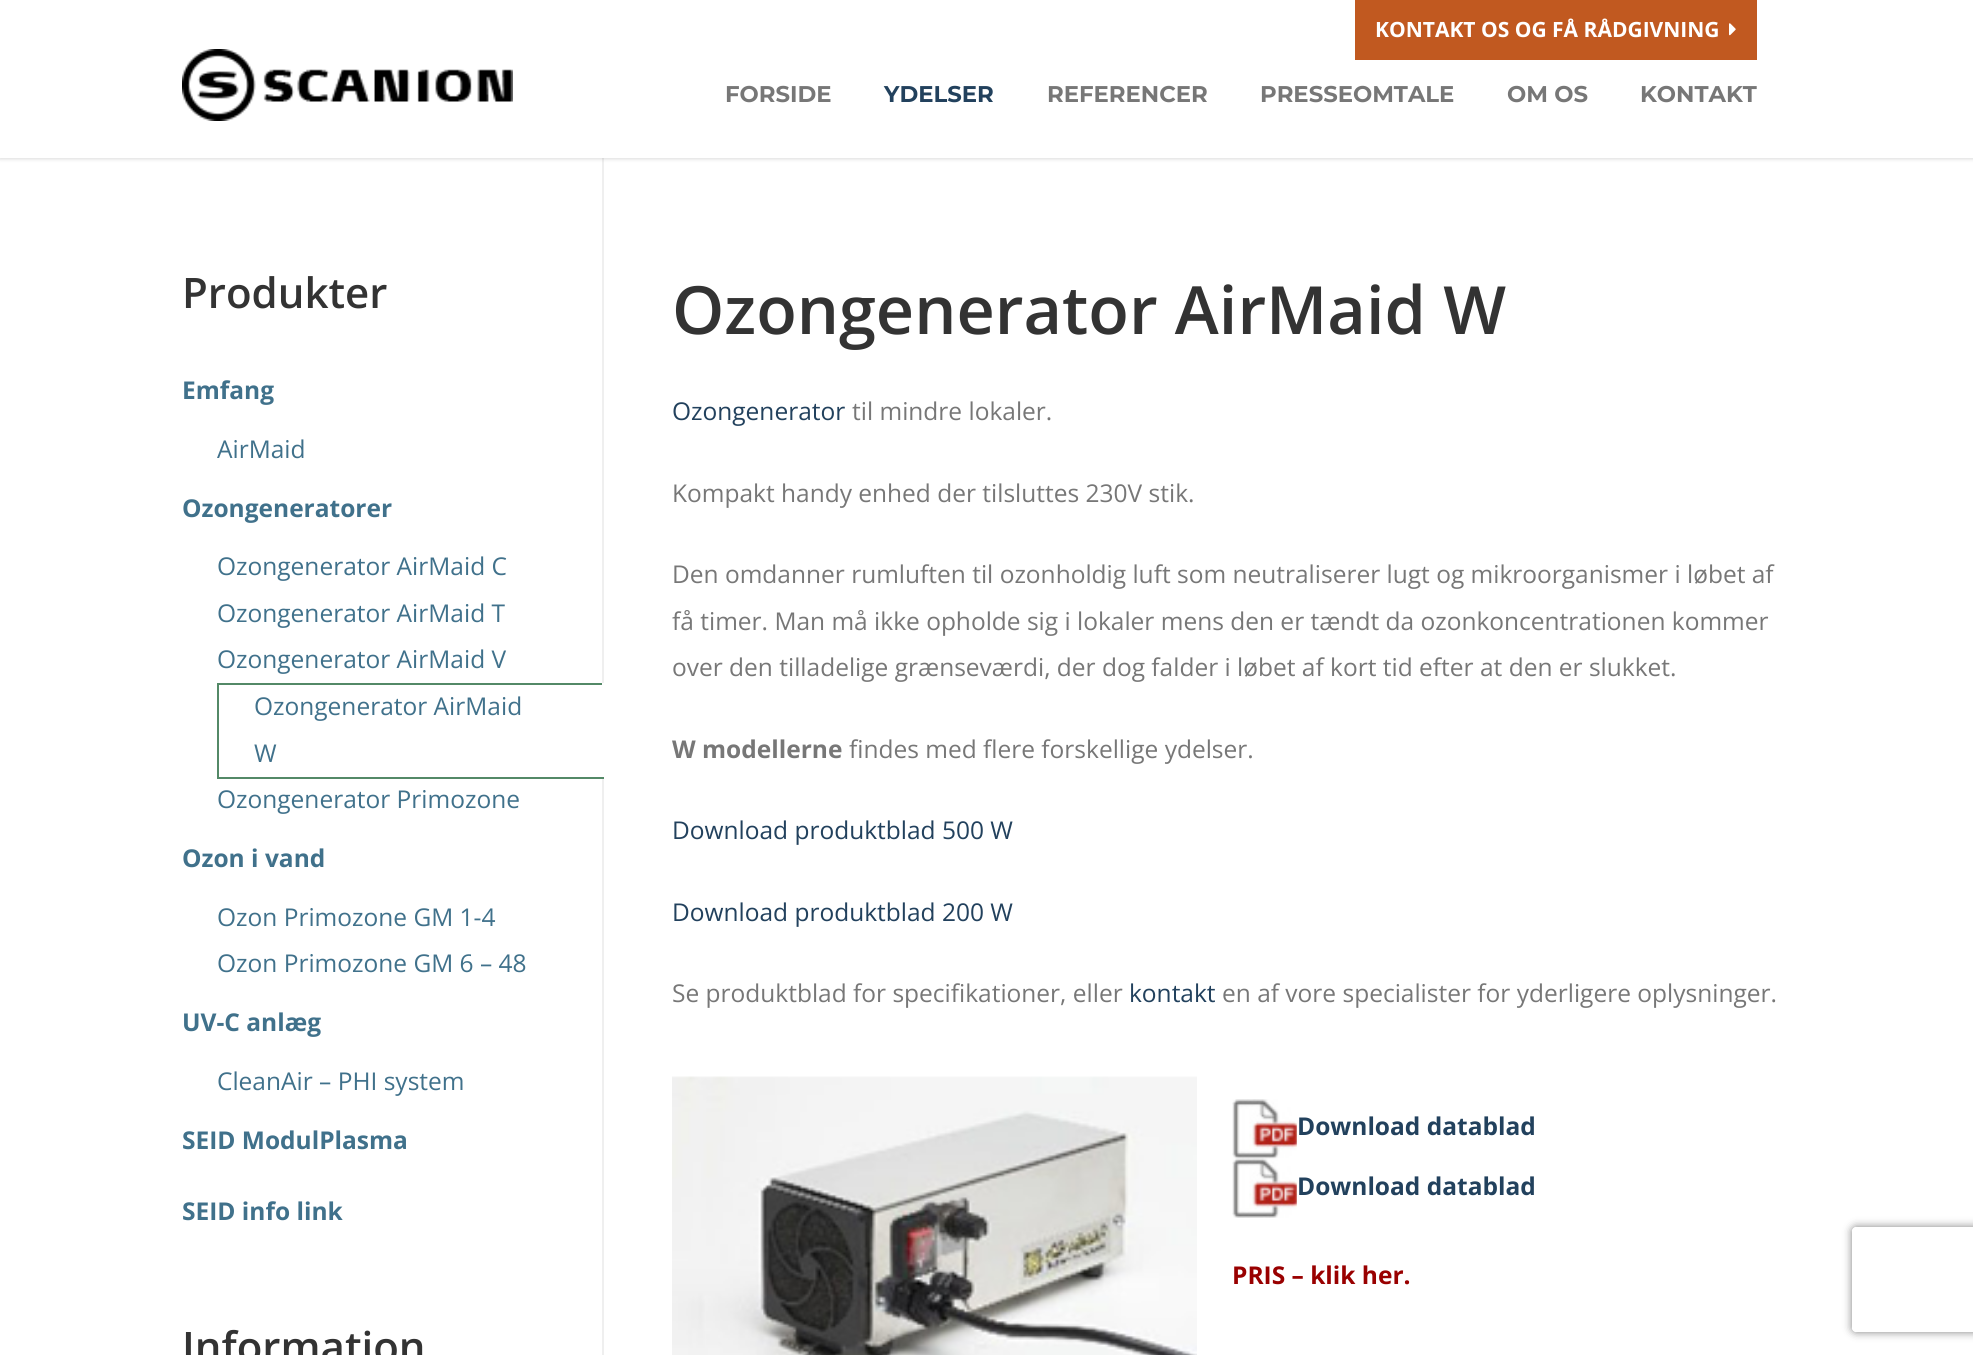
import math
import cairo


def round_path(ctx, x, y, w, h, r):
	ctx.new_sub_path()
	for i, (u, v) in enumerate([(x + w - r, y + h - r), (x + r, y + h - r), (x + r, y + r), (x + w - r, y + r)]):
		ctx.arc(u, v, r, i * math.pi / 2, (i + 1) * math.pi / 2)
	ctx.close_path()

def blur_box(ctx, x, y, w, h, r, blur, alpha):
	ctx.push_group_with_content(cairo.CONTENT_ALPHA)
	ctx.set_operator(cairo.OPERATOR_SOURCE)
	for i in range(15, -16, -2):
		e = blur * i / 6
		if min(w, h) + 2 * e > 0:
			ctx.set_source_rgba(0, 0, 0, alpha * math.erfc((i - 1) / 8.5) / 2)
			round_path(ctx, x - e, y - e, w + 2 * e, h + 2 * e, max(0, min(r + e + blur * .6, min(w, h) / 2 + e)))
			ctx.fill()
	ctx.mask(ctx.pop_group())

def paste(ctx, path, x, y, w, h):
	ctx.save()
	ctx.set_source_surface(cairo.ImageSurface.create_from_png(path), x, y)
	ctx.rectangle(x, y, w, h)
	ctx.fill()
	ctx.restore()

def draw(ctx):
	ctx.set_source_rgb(1, 1, 1)
	ctx.paint()
	ctx.set_source_rgb(0.937, 0.937, 0.937)
	ctx.rectangle(602, 158, 2, 1197)
	ctx.fill()
	ctx.set_source_rgb(0, 0, 0)
	blur_box(ctx, 0, 2, 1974, 157, 0, 2, 0.15)
	ctx.set_source_rgb(1, 1, 1)
	ctx.rectangle(0, 0, 1973, 158)
	ctx.fill()
	ctx.set_source_rgb(0.757, 0.349, 0.125)
	ctx.rectangle(1355, 0, 402, 60)
	ctx.fill()
	ctx.select_font_face('Open Sans', cairo.FONT_SLANT_NORMAL, cairo.FONT_WEIGHT_BOLD)
	ctx.set_font_size(21)
	ctx.set_source_rgb(1, 1, 1)
	ctx.move_to(1375, 37)
	ctx.show_text('KONTAKT OS OG FÅ RÅDGIVNING')
	paste(ctx, 'media/1.png', 1729, 23, 7, 13)
	paste(ctx, 'media/2.png', 182, 49, 331, 72)
	ctx.select_font_face('Montserrat', cairo.FONT_SLANT_NORMAL, cairo.FONT_WEIGHT_BOLD)
	ctx.set_font_size(22.75)
	ctx.set_source_rgb(0.467, 0.467, 0.467)
	ctx.move_to(725, 102)
	ctx.show_text('FORSIDE')
	ctx.set_source_rgb(0.133, 0.255, 0.365)
	ctx.move_to(884, 102)
	ctx.show_text('YDELSER')
	ctx.set_source_rgb(0.467, 0.467, 0.467)
	for x, y, s in [
		(1047, 102, 'REFERENCER'),
		(1260, 102, 'PRESSEOMTALE'),
		(1507, 102, 'OM OS'),
		(1640, 102, 'KONTAKT'),
	]:
		ctx.move_to(x, y)
		ctx.show_text(s)
	ctx.select_font_face('Open Sans SemiBold')
	ctx.set_font_size(42)
	ctx.set_source_rgb(0.2, 0.2, 0.2)
	ctx.move_to(182, 308)
	ctx.show_text('Produkter')
	ctx.select_font_face('Open Sans', cairo.FONT_SLANT_NORMAL, cairo.FONT_WEIGHT_BOLD)
	ctx.set_font_size(24.5)
	ctx.set_source_rgb(0.251, 0.443, 0.545)
	ctx.move_to(182, 399)
	ctx.show_text('Emfang')
	ctx.select_font_face('Open Sans')
	ctx.move_to(217, 458)
	ctx.show_text('AirMaid')
	ctx.select_font_face('Open Sans', cairo.FONT_SLANT_NORMAL, cairo.FONT_WEIGHT_BOLD)
	ctx.move_to(182, 517)
	ctx.show_text('Ozongeneratorer')
	ctx.select_font_face('Open Sans')
	for x, y, s in [
		(217, 575, 'Ozongenerator AirMaid C'),
		(217, 622, 'Ozongenerator AirMaid T'),
		(217, 668, 'Ozongenerator AirMaid V'),
	]:
		ctx.move_to(x, y)
		ctx.show_text(s)
	ctx.set_source_rgb(0.325, 0.537, 0.404)
	ctx.rectangle(217, 683, 387, 2)
	ctx.fill()
	ctx.set_source_rgb(1, 1, 1)
	ctx.rectangle(602, 683, 2, 96)
	ctx.fill()
	ctx.set_source_rgb(0.325, 0.537, 0.404)
	ctx.rectangle(217, 777, 387, 2)
	ctx.rectangle(217, 683, 2, 96)
	ctx.fill()
	ctx.set_source_rgb(0.251, 0.443, 0.545)
	for x, y, s in [
		(254, 715, 'Ozongenerator AirMaid'),
		(254, 762, 'W'),
		(217, 808, 'Ozongenerator Primozone'),
	]:
		ctx.move_to(x, y)
		ctx.show_text(s)
	ctx.select_font_face('Open Sans', cairo.FONT_SLANT_NORMAL, cairo.FONT_WEIGHT_BOLD)
	ctx.move_to(182, 867)
	ctx.show_text('Ozon i vand')
	ctx.select_font_face('Open Sans')
	ctx.move_to(217, 926)
	ctx.show_text('Ozon Primozone GM 1-4')
	ctx.move_to(217, 972)
	ctx.show_text('Ozon Primozone GM 6 – 48')
	ctx.select_font_face('Open Sans', cairo.FONT_SLANT_NORMAL, cairo.FONT_WEIGHT_BOLD)
	ctx.move_to(182, 1031)
	ctx.show_text('UV-C anlæg')
	ctx.select_font_face('Open Sans')
	ctx.move_to(217, 1090)
	ctx.show_text('CleanAir – PHI system')
	ctx.select_font_face('Open Sans', cairo.FONT_SLANT_NORMAL, cairo.FONT_WEIGHT_BOLD)
	ctx.move_to(182, 1149)
	ctx.show_text('SEID ModulPlasma')
	ctx.move_to(182, 1220)
	ctx.show_text('SEID info link')
	ctx.select_font_face('Open Sans SemiBold')
	ctx.set_font_size(42)
	ctx.set_source_rgb(0.2, 0.2, 0.2)
	ctx.move_to(182, 1362)
	ctx.show_text('Information')
	ctx.set_font_size(66.5)
	ctx.move_to(672, 334)
	ctx.show_text('Ozongenerator AirMaid W')
	ctx.select_font_face('Open Sans')
	ctx.set_font_size(24.5)
	ctx.set_source_rgb(0.133, 0.255, 0.365)
	ctx.move_to(672, 420)
	ctx.show_text('Ozongenerator')
	ctx.set_source_rgb(0.467, 0.467, 0.467)
	for x, y, s in [
		(852, 420, 'til mindre lokaler.'),
		(672, 502, 'Kompakt handy enhed der tilsluttes 230V stik.'),
		(672, 583, 'Den omdanner rumluften til ozonholdig luft som neutraliserer lugt og mikroorganismer i løbet af'),
		(672, 630, 'få timer. Man må ikke opholde sig i lokaler mens den er tændt da ozonkoncentrationen kommer'),
		(672, 676, 'over den tilladelige grænseværdi, der dog falder i løbet af kort tid efter at den er slukket.'),
	]:
		ctx.move_to(x, y)
		ctx.show_text(s)
	ctx.select_font_face('Open Sans', cairo.FONT_SLANT_NORMAL, cairo.FONT_WEIGHT_BOLD)
	ctx.move_to(672, 758)
	ctx.show_text('W modellerne')
	ctx.select_font_face('Open Sans')
	ctx.move_to(849, 758)
	ctx.show_text('findes med flere forskellige ydelser.')
	ctx.set_source_rgb(0.133, 0.255, 0.365)
	ctx.move_to(672, 839)
	ctx.show_text('Download produktblad 500 W')
	ctx.move_to(672, 921)
	ctx.show_text('Download produktblad 200 W')
	ctx.set_source_rgb(0.467, 0.467, 0.467)
	ctx.move_to(672, 1002)
	ctx.show_text('Se produktblad for specifikationer, eller')
	ctx.set_source_rgb(0.133, 0.255, 0.365)
	ctx.move_to(1129, 1002)
	ctx.show_text('kontakt')
	ctx.set_source_rgb(0.467, 0.467, 0.467)
	ctx.move_to(1222, 1002)
	ctx.show_text('en af vore specialister for yderligere oplysninger.')
	paste(ctx, 'media/3.png', 672, 1076, 525, 279)
	paste(ctx, 'media/4.png', 1232, 1099, 65, 60)
	ctx.select_font_face('Open Sans', cairo.FONT_SLANT_NORMAL, cairo.FONT_WEIGHT_BOLD)
	ctx.set_source_rgb(0.133, 0.255, 0.365)
	ctx.move_to(1297, 1135)
	ctx.show_text('Download datablad')
	paste(ctx, 'media/5.png', 1232, 1158, 65, 60)
	ctx.move_to(1297, 1195)
	ctx.show_text('Download datablad')
	ctx.set_source_rgb(0.6, 0, 0)
	ctx.move_to(1232, 1284)
	ctx.show_text('PRIS – klik her.')
	ctx.save()
	ctx.set_fill_rule(cairo.FILL_RULE_EVEN_ODD)
	ctx.new_path()
	ctx.move_to(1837, 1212)
	ctx.line_to(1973, 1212)
	ctx.line_to(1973, 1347)
	ctx.line_to(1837, 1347)
	ctx.close_path()
	ctx.move_to(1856, 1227)
	ctx.line_to(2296, 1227)
	ctx.curve_to(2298, 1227, 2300, 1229, 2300, 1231)
	ctx.line_to(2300, 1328)
	ctx.curve_to(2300, 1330, 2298, 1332, 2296, 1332)
	ctx.line_to(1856, 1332)
	ctx.curve_to(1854, 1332, 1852, 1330, 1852, 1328)
	ctx.line_to(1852, 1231)
	ctx.curve_to(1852, 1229, 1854, 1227, 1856, 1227)
	ctx.close_path()
	ctx.clip()
	ctx.set_source_rgb(0.502, 0.502, 0.502)
	blur_box(ctx, 1852, 1227, 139, 105, 4, 4.5, 1)
	ctx.restore()


surface = cairo.ImageSurface(cairo.FORMAT_RGB24, 1973, 1355)
ctx = cairo.Context(surface)
options = cairo.FontOptions()
options.set_hint_metrics(cairo.HINT_METRICS_OFF)
options.set_hint_style(cairo.HINT_STYLE_NONE)
ctx.set_font_options(options)
ctx.set_miter_limit(4)
draw(ctx)
surface.write_to_png('image.png')
